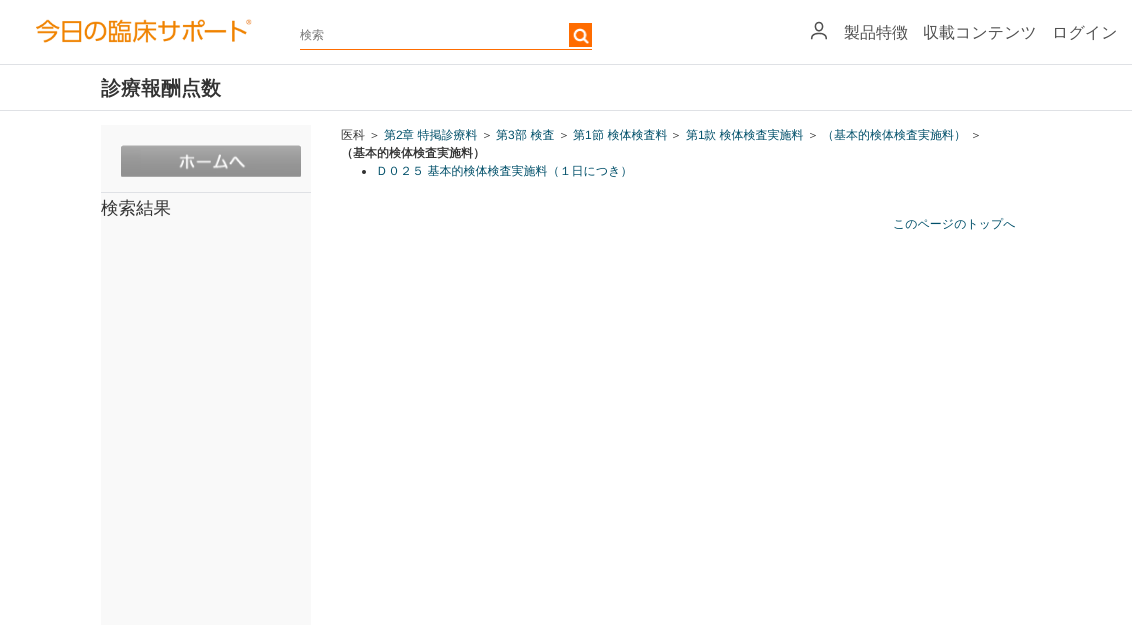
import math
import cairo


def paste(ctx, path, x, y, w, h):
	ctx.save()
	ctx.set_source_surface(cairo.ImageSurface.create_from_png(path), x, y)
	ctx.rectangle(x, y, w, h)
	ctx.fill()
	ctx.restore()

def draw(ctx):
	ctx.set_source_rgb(1, 1, 1)
	ctx.paint()
	ctx.set_source_rgb(0.875, 0.882, 0.898)
	ctx.rectangle(0, 64, 1132, 1)
	ctx.fill()
	paste(ctx, 'media/1.png', 36, 19, 216, 24)
	ctx.set_source_rgb(1, 0.424, 0)
	ctx.rectangle(300, 49, 292, 1)
	ctx.fill()
	ctx.select_font_face('WenQuanYi Zen Hei Medium')
	ctx.set_font_size(12)
	ctx.set_source_rgb(0.459, 0.459, 0.459)
	ctx.move_to(300, 39)
	ctx.show_text('検索')
	ctx.set_source_rgb(1, 0.424, 0)
	ctx.rectangle(569, 23, 23, 24)
	ctx.fill()
	paste(ctx, 'media/2.png', 573, 28, 17, 16)
	paste(ctx, 'media/3.png', 810, 21, 17, 19)
	ctx.set_font_size(16)
	ctx.set_source_rgb(0.314, 0.314, 0.314)
	for x, y, s in [
		(844, 38, '製品特徴'),
		(923, 38, '収載コンテンツ'),
		(1052, 38, 'ログイン'),
	]:
		ctx.move_to(x, y)
		ctx.show_text(s)
	ctx.set_source_rgb(0.875, 0.882, 0.898)
	ctx.rectangle(0, 110, 1132, 1)
	ctx.fill()
	ctx.select_font_face('WenQuanYi Zen Hei', cairo.FONT_SLANT_NORMAL, cairo.FONT_WEIGHT_BOLD)
	ctx.set_font_size(20)
	ctx.set_source_rgb(0.2, 0.2, 0.2)
	ctx.move_to(101, 95)
	ctx.show_text('診療報酬点数')
	ctx.set_source_rgb(0.973, 0.973, 0.973)
	ctx.rectangle(101, 125, 210, 500)
	ctx.fill()
	ctx.set_source_rgb(0.875, 0.882, 0.898)
	ctx.rectangle(101, 192, 210, 1)
	ctx.fill()
	paste(ctx, 'media/4.png', 121, 145, 180, 32)
	ctx.select_font_face('WenQuanYi Zen Hei Medium')
	ctx.set_font_size(17.5)
	ctx.set_source_rgb(0.2, 0.2, 0.2)
	ctx.move_to(101, 214)
	ctx.show_text('検索結果')
	ctx.set_font_size(12)
	ctx.move_to(341, 139)
	ctx.show_text('医科 ＞')
	ctx.set_source_rgb(0, 0.31, 0.412)
	ctx.move_to(384, 139)
	ctx.show_text('第')
	ctx.select_font_face('Liberation Sans')
	ctx.move_to(396, 139)
	ctx.show_text('2')
	ctx.select_font_face('WenQuanYi Zen Hei Medium')
	ctx.move_to(402, 139)
	ctx.show_text('章 特掲診療料')
	ctx.set_source_rgb(0.2, 0.2, 0.2)
	ctx.move_to(481, 139)
	ctx.show_text('＞')
	ctx.set_source_rgb(0, 0.31, 0.412)
	ctx.move_to(496, 139)
	ctx.show_text('第')
	ctx.select_font_face('Liberation Sans')
	ctx.move_to(508, 139)
	ctx.show_text('3')
	ctx.select_font_face('WenQuanYi Zen Hei Medium')
	ctx.move_to(515, 139)
	ctx.show_text('部 検査')
	ctx.set_source_rgb(0.2, 0.2, 0.2)
	ctx.move_to(558, 139)
	ctx.show_text('＞')
	ctx.set_source_rgb(0, 0.31, 0.412)
	ctx.move_to(573, 139)
	ctx.show_text('第')
	ctx.select_font_face('Liberation Sans')
	ctx.move_to(585, 139)
	ctx.show_text('1')
	ctx.select_font_face('WenQuanYi Zen Hei Medium')
	ctx.move_to(592, 139)
	ctx.show_text('節 検体検査料')
	ctx.set_source_rgb(0.2, 0.2, 0.2)
	ctx.move_to(670, 139)
	ctx.show_text('＞')
	ctx.set_source_rgb(0, 0.31, 0.412)
	ctx.move_to(686, 139)
	ctx.show_text('第')
	ctx.select_font_face('Liberation Sans')
	ctx.move_to(698, 139)
	ctx.show_text('1')
	ctx.select_font_face('WenQuanYi Zen Hei Medium')
	ctx.move_to(704, 139)
	ctx.show_text('款 検体検査実施料')
	ctx.set_source_rgb(0.2, 0.2, 0.2)
	ctx.move_to(807, 139)
	ctx.show_text('＞')
	ctx.set_source_rgb(0, 0.31, 0.412)
	ctx.move_to(822, 139)
	ctx.show_text('（基本的検体検査実施料）')
	ctx.set_source_rgb(0.2, 0.2, 0.2)
	ctx.move_to(970, 139)
	ctx.show_text('＞')
	ctx.select_font_face('WenQuanYi Zen Hei', cairo.FONT_SLANT_NORMAL, cairo.FONT_WEIGHT_BOLD)
	ctx.move_to(341, 157)
	ctx.show_text('（基本的検体検査実施料）')
	ctx.new_path()
	ctx.arc(364, 172, 2, 0, 2 * math.pi)
	ctx.fill()
	ctx.select_font_face('WenQuanYi Zen Hei Medium')
	ctx.set_source_rgb(0, 0.31, 0.412)
	ctx.move_to(376, 175)
	ctx.show_text('Ｄ０２５ 基本的検体検査実施料（１日につき）')
	ctx.move_to(893, 228)
	ctx.show_text('このページのトップへ')


surface = cairo.ImageSurface(cairo.FORMAT_RGB24, 1132, 640)
ctx = cairo.Context(surface)
options = cairo.FontOptions()
options.set_hint_metrics(cairo.HINT_METRICS_OFF)
options.set_hint_style(cairo.HINT_STYLE_NONE)
ctx.set_font_options(options)
ctx.set_miter_limit(4)
draw(ctx)
surface.write_to_png('image.png')
